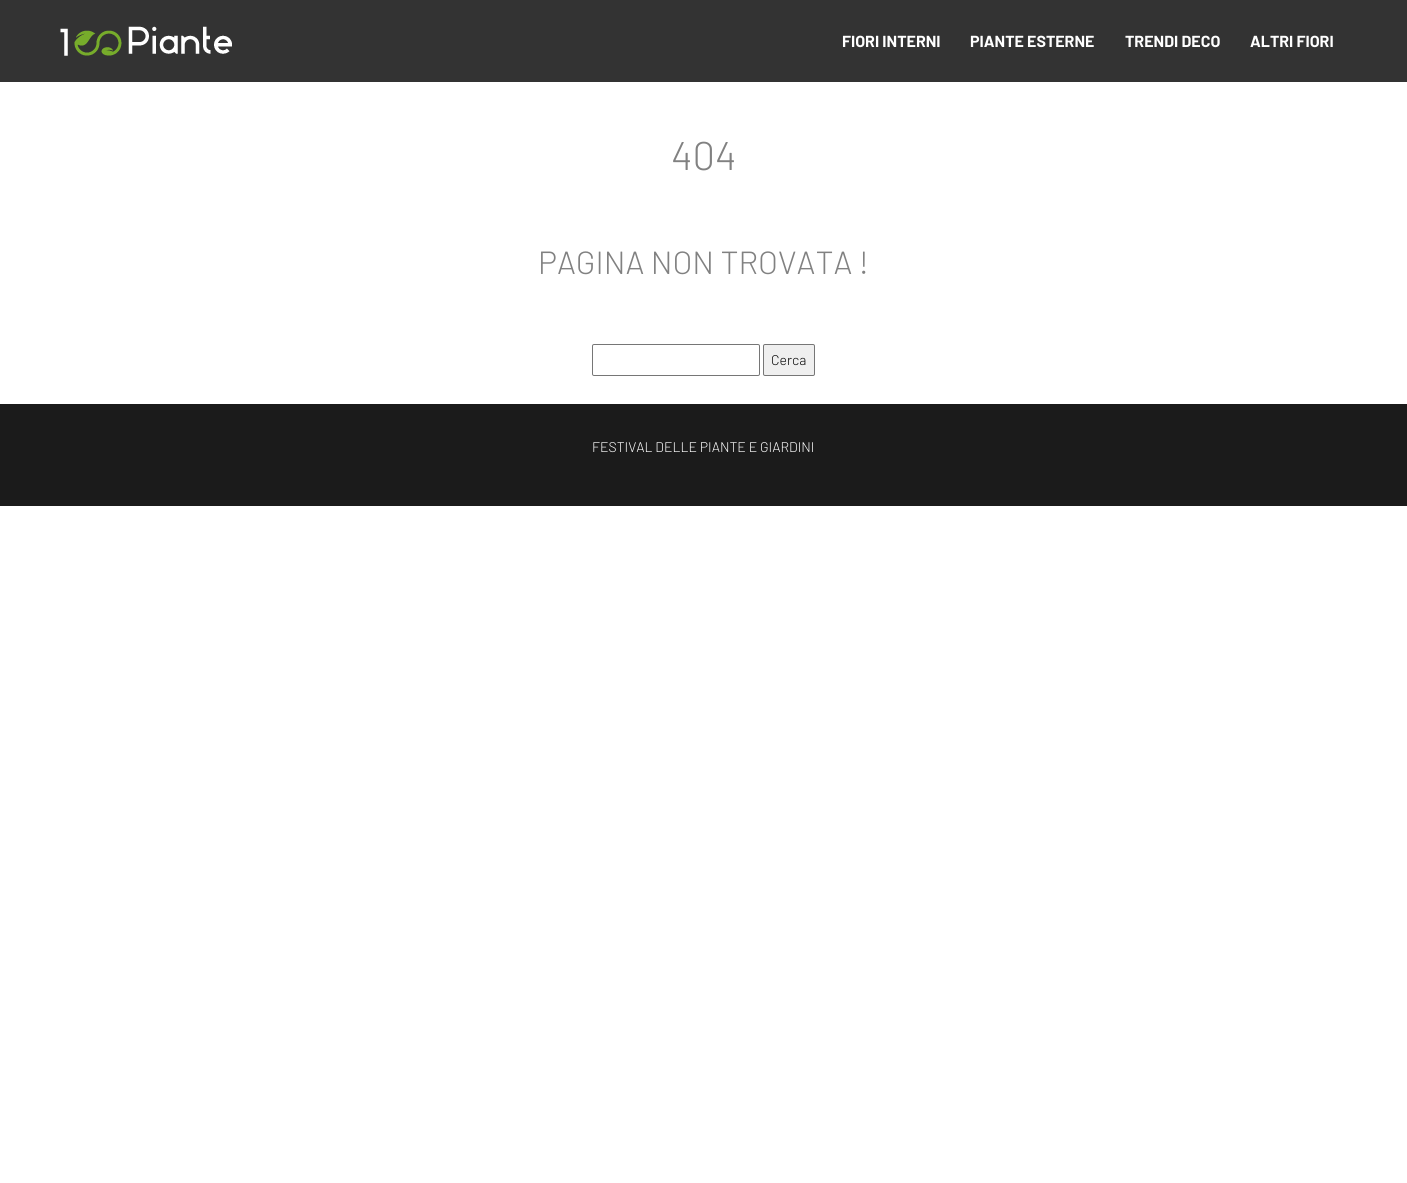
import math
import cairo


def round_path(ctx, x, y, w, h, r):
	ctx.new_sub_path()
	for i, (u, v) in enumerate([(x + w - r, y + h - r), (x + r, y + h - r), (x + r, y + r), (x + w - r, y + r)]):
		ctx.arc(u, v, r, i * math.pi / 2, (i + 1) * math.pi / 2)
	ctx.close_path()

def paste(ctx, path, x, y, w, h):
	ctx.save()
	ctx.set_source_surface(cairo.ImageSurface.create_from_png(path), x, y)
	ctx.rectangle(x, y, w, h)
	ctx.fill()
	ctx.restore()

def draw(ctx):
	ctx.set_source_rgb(1, 1, 1)
	ctx.paint()
	ctx.set_source_rgb(0.2, 0.2, 0.2)
	ctx.rectangle(0, 0, 1407, 82)
	ctx.fill()
	paste(ctx, 'media/1.png', 60, 26, 172, 30)
	ctx.select_font_face('Barlow', cairo.FONT_SLANT_NORMAL, cairo.FONT_WEIGHT_BOLD)
	ctx.set_font_size(16)
	ctx.set_source_rgb(1, 1, 1)
	for x, y, s in [
		(842, 47, 'FIORI INTERNI'),
		(970, 47, 'PIANTE ESTERNE'),
		(1125, 47, 'TRENDI DECO'),
		(1250, 47, 'ALTRI FIORI'),
	]:
		ctx.move_to(x, y)
		ctx.show_text(s)
	ctx.select_font_face('Barlow Light')
	ctx.set_font_size(40)
	ctx.set_source_rgb(0.506, 0.506, 0.506)
	ctx.move_to(671, 170)
	ctx.show_text('404')
	ctx.set_font_size(32)
	ctx.move_to(538, 274)
	ctx.show_text('PAGINA NON TROVATA !')
	round_path(ctx, 592.5, 344.5, 167, 31, 1.5)
	ctx.set_source_rgb(0.463, 0.463, 0.463)
	ctx.set_line_width(1)
	ctx.stroke()
	ctx.set_source_rgb(0.937, 0.937, 0.937)
	round_path(ctx, 763.5, 344.5, 51, 31, 1.5)
	ctx.fill_preserve()
	ctx.set_source_rgb(0.463, 0.463, 0.463)
	ctx.stroke()
	ctx.set_font_size(14)
	ctx.set_source_rgb(0, 0, 0)
	ctx.move_to(771, 365)
	ctx.show_text('Cerca')
	ctx.set_source_rgb(0.106, 0.106, 0.106)
	ctx.rectangle(0, 404, 1407, 102)
	ctx.fill()
	ctx.set_source_rgb(1, 1, 1)
	ctx.move_to(592, 452)
	ctx.show_text('FESTIVAL DELLE PIANTE E GIARDINI')


surface = cairo.ImageSurface(cairo.FORMAT_RGB24, 1407, 1183)
ctx = cairo.Context(surface)
options = cairo.FontOptions()
options.set_hint_metrics(cairo.HINT_METRICS_OFF)
options.set_hint_style(cairo.HINT_STYLE_NONE)
ctx.set_font_options(options)
ctx.set_miter_limit(4)
draw(ctx)
surface.write_to_png('image.png')
